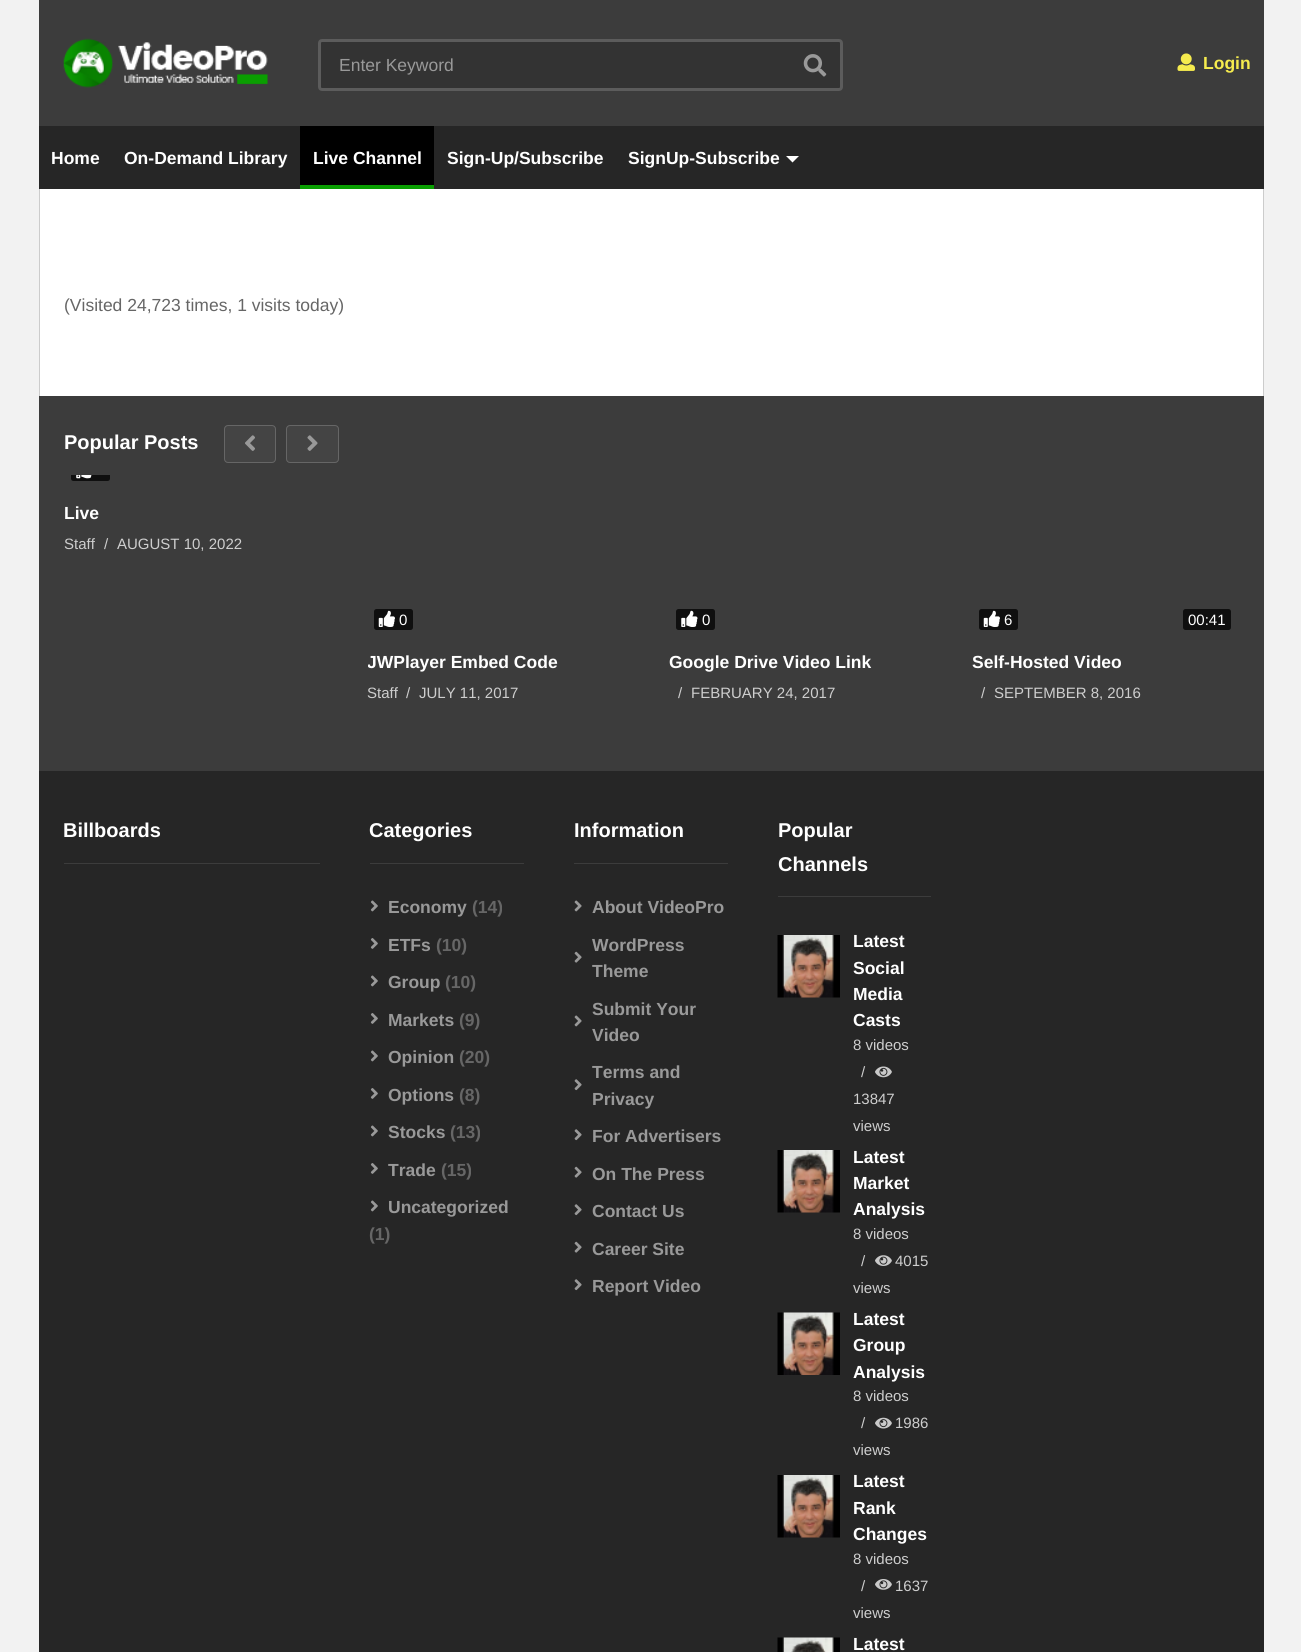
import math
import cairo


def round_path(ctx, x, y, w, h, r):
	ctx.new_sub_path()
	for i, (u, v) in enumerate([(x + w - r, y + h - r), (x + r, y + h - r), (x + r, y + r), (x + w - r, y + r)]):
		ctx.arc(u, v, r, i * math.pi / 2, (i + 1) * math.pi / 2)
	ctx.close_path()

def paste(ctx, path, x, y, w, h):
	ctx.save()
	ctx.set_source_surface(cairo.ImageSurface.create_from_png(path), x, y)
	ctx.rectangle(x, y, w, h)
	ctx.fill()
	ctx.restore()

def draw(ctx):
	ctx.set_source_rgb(0.949, 0.949, 0.949)
	ctx.paint()
	ctx.set_source_rgb(1, 1, 1)
	ctx.rectangle(40, 189, 1223, 207)
	ctx.fill()
	ctx.set_source_rgb(0.235, 0.235, 0.235)
	ctx.rectangle(39, 0, 1225, 126)
	ctx.fill()
	paste(ctx, 'media/1.png', 63, 38, 205, 50)
	ctx.set_source_rgb(0.2, 0.2, 0.2)
	round_path(ctx, 318, 39, 525, 52, 4)
	ctx.fill()
	round_path(ctx, 319.5, 40.5, 522, 49, 2.5)
	ctx.set_source_rgba(1, 1, 1, 0.2)
	ctx.set_line_width(3)
	ctx.stroke()
	ctx.select_font_face('Liberation Sans')
	ctx.set_font_size(17.5)
	ctx.set_source_rgb(0.6, 0.6, 0.6)
	ctx.move_to(339, 71)
	ctx.show_text('Enter Keyword')
	paste(ctx, 'media/2.png', 803, 54, 24, 23)
	paste(ctx, 'media/3.png', 1177, 53, 18, 18)
	ctx.select_font_face('Liberation Sans', cairo.FONT_SLANT_NORMAL, cairo.FONT_WEIGHT_BOLD)
	ctx.set_source_rgb(0.961, 0.922, 0.306)
	ctx.move_to(1203, 69)
	ctx.show_text('Login')
	ctx.set_source_rgb(0.8, 0.8, 0.8)
	ctx.rectangle(1263, 186, 1, 210)
	ctx.rectangle(39, 186, 1, 210)
	ctx.fill()
	ctx.set_source_rgb(0.149, 0.149, 0.149)
	ctx.rectangle(39, 126, 1225, 63)
	ctx.fill()
	ctx.set_source_rgb(1, 1, 1)
	ctx.move_to(51, 164)
	ctx.show_text('Home')
	ctx.move_to(124, 164)
	ctx.show_text('On-Demand Library')
	ctx.set_source_rgb(0, 0, 0)
	ctx.rectangle(300, 126, 134, 59)
	ctx.fill()
	ctx.set_source_rgb(1, 1, 1)
	ctx.move_to(313, 164)
	ctx.show_text('Live Channel')
	ctx.set_source_rgb(0.039, 0.62, 0.004)
	ctx.rectangle(300, 185, 134, 4)
	ctx.fill()
	ctx.set_source_rgb(1, 1, 1)
	ctx.move_to(447, 164)
	ctx.show_text('Sign-Up/Subscribe')
	ctx.move_to(628, 164)
	ctx.show_text('SignUp-Subscribe')
	ctx.new_path()
	ctx.move_to(786, 156)
	ctx.line_to(799, 156)
	ctx.line_to(792.5, 162.5)
	ctx.close_path()
	ctx.fill()
	ctx.select_font_face('Liberation Sans')
	ctx.set_source_rgb(0.4, 0.4, 0.4)
	ctx.move_to(64, 311)
	ctx.show_text('(Visited 24,723 times, 1 visits today)')
	ctx.set_source_rgb(0.235, 0.235, 0.235)
	ctx.rectangle(39, 396, 1225, 375)
	ctx.fill()
	ctx.select_font_face('Liberation Sans', cairo.FONT_SLANT_NORMAL, cairo.FONT_WEIGHT_BOLD)
	ctx.set_font_size(20)
	ctx.set_source_rgb(1, 1, 1)
	ctx.move_to(64, 449)
	ctx.show_text('Popular Posts')
	ctx.set_source_rgb(0.267, 0.267, 0.267)
	round_path(ctx, 224.5, 425.5, 51, 37, 3.5)
	ctx.fill_preserve()
	ctx.set_source_rgb(0.4, 0.4, 0.4)
	ctx.set_line_width(1)
	ctx.stroke()
	paste(ctx, 'media/4.png', 245, 435, 10, 16)
	ctx.set_source_rgb(0.267, 0.267, 0.267)
	round_path(ctx, 286.5, 425.5, 52, 37, 3.5)
	ctx.fill_preserve()
	ctx.set_source_rgb(0.4, 0.4, 0.4)
	ctx.stroke()
	paste(ctx, 'media/5.png', 307, 435, 11, 16)
	ctx.set_source_rgb(0.059, 0.059, 0.059)
	ctx.new_path()
	ctx.move_to(71, 475)
	ctx.line_to(110, 475)
	ctx.line_to(110, 478.5)
	ctx.curve_to(110, 480, 109, 481, 107.5, 481)
	ctx.line_to(73.5, 481)
	ctx.curve_to(72, 481, 71, 480, 71, 478.5)
	ctx.close_path()
	ctx.fill()
	paste(ctx, 'media/6.png', 76, 475, 16, 4)
	ctx.set_font_size(17.5)
	ctx.set_source_rgb(1, 1, 1)
	ctx.move_to(64, 519)
	ctx.show_text('Live')
	ctx.select_font_face('Liberation Sans')
	ctx.set_font_size(15)
	ctx.set_source_rgb(0.808, 0.808, 0.808)
	for x, y, s in [
		(64, 549, 'Staff'),
		(104, 549, '/'),
		(117, 549, 'AUGUST 10, 2022'),
	]:
		ctx.move_to(x, y)
		ctx.show_text(s)
	ctx.set_source_rgb(0.059, 0.059, 0.059)
	round_path(ctx, 374, 609, 39, 21, 2.5)
	ctx.fill()
	paste(ctx, 'media/7.png', 378, 610, 17, 17)
	ctx.set_source_rgb(1, 1, 1)
	ctx.move_to(399, 625)
	ctx.show_text('0')
	ctx.save()
	ctx.rectangle(368, 649, 265, 25)
	ctx.clip()
	ctx.select_font_face('Liberation Sans', cairo.FONT_SLANT_NORMAL, cairo.FONT_WEIGHT_BOLD)
	ctx.set_font_size(17.5)
	ctx.move_to(367, 668)
	ctx.show_text('JWPlayer Embed Code')
	ctx.restore()
	ctx.set_source_rgb(0.808, 0.808, 0.808)
	for x, y, s in [
		(367, 698, 'Staff'),
		(406, 698, '/'),
		(419, 698, 'JULY 11, 2017'),
	]:
		ctx.move_to(x, y)
		ctx.show_text(s)
	ctx.set_source_rgb(0.059, 0.059, 0.059)
	round_path(ctx, 676, 609, 39, 21, 2.5)
	ctx.fill()
	paste(ctx, 'media/8.png', 681, 610, 17, 17)
	ctx.set_source_rgb(1, 1, 1)
	ctx.move_to(702, 625)
	ctx.show_text('0')
	ctx.select_font_face('Liberation Sans', cairo.FONT_SLANT_NORMAL, cairo.FONT_WEIGHT_BOLD)
	ctx.set_font_size(17.5)
	ctx.move_to(669, 668)
	ctx.show_text('Google Drive Video Link')
	ctx.select_font_face('Liberation Sans')
	ctx.set_font_size(15)
	ctx.set_source_rgb(0.808, 0.808, 0.808)
	ctx.move_to(678, 698)
	ctx.show_text('/')
	ctx.move_to(691, 698)
	ctx.show_text('FEBRUARY 24, 2017')
	ctx.set_source_rgb(0.059, 0.059, 0.059)
	round_path(ctx, 979, 609, 39, 21, 2.5)
	ctx.fill()
	paste(ctx, 'media/7.png', 983, 610, 17, 17)
	ctx.set_source_rgb(1, 1, 1)
	ctx.move_to(1004, 625)
	ctx.show_text('6')
	ctx.set_source_rgb(0.059, 0.059, 0.059)
	round_path(ctx, 1183, 609, 48, 21, 2.5)
	ctx.fill()
	ctx.set_source_rgb(1, 1, 1)
	ctx.move_to(1188, 625)
	ctx.show_text('00:41')
	ctx.select_font_face('Liberation Sans', cairo.FONT_SLANT_NORMAL, cairo.FONT_WEIGHT_BOLD)
	ctx.set_font_size(17.5)
	ctx.move_to(972, 668)
	ctx.show_text('Self-Hosted Video')
	ctx.select_font_face('Liberation Sans')
	ctx.set_font_size(15)
	ctx.set_source_rgb(0.808, 0.808, 0.808)
	ctx.move_to(981, 698)
	ctx.show_text('/')
	ctx.move_to(994, 698)
	ctx.show_text('SEPTEMBER 8, 2016')
	ctx.set_source_rgb(0.149, 0.149, 0.149)
	ctx.rectangle(39, 771, 1225, 881)
	ctx.fill()
	ctx.set_source_rgb(0.235, 0.235, 0.235)
	ctx.rectangle(64, 863, 256, 1)
	ctx.fill()
	ctx.select_font_face('Liberation Sans', cairo.FONT_SLANT_NORMAL, cairo.FONT_WEIGHT_BOLD)
	ctx.set_font_size(20)
	ctx.set_source_rgb(1, 1, 1)
	ctx.move_to(63, 837)
	ctx.show_text('Billboards')
	ctx.set_source_rgb(0.235, 0.235, 0.235)
	ctx.rectangle(370, 863, 154, 1)
	ctx.fill()
	ctx.set_source_rgb(1, 1, 1)
	ctx.move_to(369, 837)
	ctx.show_text('Categories')
	paste(ctx, 'media/9.png', 370, 900, 8, 12)
	ctx.set_font_size(17.5)
	ctx.set_source_rgb(0.6, 0.6, 0.6)
	ctx.move_to(388, 913)
	ctx.show_text('Economy')
	ctx.set_source_rgb(0.4, 0.4, 0.4)
	ctx.move_to(472, 913)
	ctx.show_text('(14)')
	paste(ctx, 'media/10.png', 370, 938, 8, 11)
	ctx.set_source_rgb(0.6, 0.6, 0.6)
	ctx.move_to(388, 951)
	ctx.show_text('ETFs')
	ctx.set_source_rgb(0.4, 0.4, 0.4)
	ctx.move_to(436, 951)
	ctx.show_text('(10)')
	paste(ctx, 'media/9.png', 370, 975, 8, 12)
	ctx.set_source_rgb(0.6, 0.6, 0.6)
	ctx.move_to(388, 988)
	ctx.show_text('Group')
	ctx.set_source_rgb(0.4, 0.4, 0.4)
	ctx.move_to(445, 988)
	ctx.show_text('(10)')
	paste(ctx, 'media/10.png', 370, 1013, 8, 11)
	ctx.set_source_rgb(0.6, 0.6, 0.6)
	ctx.move_to(388, 1026)
	ctx.show_text('Markets')
	ctx.set_source_rgb(0.4, 0.4, 0.4)
	ctx.move_to(459, 1026)
	ctx.show_text('(9)')
	paste(ctx, 'media/9.png', 370, 1050, 8, 12)
	ctx.set_source_rgb(0.6, 0.6, 0.6)
	ctx.move_to(388, 1063)
	ctx.show_text('Opinion')
	ctx.set_source_rgb(0.4, 0.4, 0.4)
	ctx.move_to(459, 1063)
	ctx.show_text('(20)')
	paste(ctx, 'media/10.png', 370, 1088, 8, 11)
	ctx.set_source_rgb(0.6, 0.6, 0.6)
	ctx.move_to(388, 1101)
	ctx.show_text('Options')
	ctx.set_source_rgb(0.4, 0.4, 0.4)
	ctx.move_to(459, 1101)
	ctx.show_text('(8)')
	paste(ctx, 'media/9.png', 370, 1125, 8, 12)
	ctx.set_source_rgb(0.6, 0.6, 0.6)
	ctx.move_to(388, 1138)
	ctx.show_text('Stocks')
	ctx.set_source_rgb(0.4, 0.4, 0.4)
	ctx.move_to(450, 1138)
	ctx.show_text('(13)')
	paste(ctx, 'media/10.png', 370, 1163, 8, 11)
	ctx.set_source_rgb(0.6, 0.6, 0.6)
	ctx.move_to(388, 1176)
	ctx.show_text('Trade')
	ctx.set_source_rgb(0.4, 0.4, 0.4)
	ctx.move_to(441, 1176)
	ctx.show_text('(15)')
	paste(ctx, 'media/9.png', 370, 1200, 8, 12)
	ctx.set_source_rgb(0.6, 0.6, 0.6)
	ctx.move_to(388, 1213)
	ctx.show_text('Uncategorized')
	ctx.set_source_rgb(0.4, 0.4, 0.4)
	ctx.move_to(369, 1240)
	ctx.show_text('(1)')
	ctx.set_source_rgb(0.235, 0.235, 0.235)
	ctx.rectangle(574, 863, 154, 1)
	ctx.fill()
	ctx.set_font_size(20)
	ctx.set_source_rgb(1, 1, 1)
	ctx.move_to(574, 837)
	ctx.show_text('Information')
	paste(ctx, 'media/11.png', 574, 900, 8, 12)
	ctx.set_font_size(17.5)
	ctx.set_source_rgb(0.6, 0.6, 0.6)
	ctx.move_to(592, 913)
	ctx.show_text('About VideoPro')
	ctx.move_to(592, 951)
	ctx.show_text('WordPress')
	paste(ctx, 'media/12.png', 574, 951, 8, 12)
	ctx.move_to(592, 977)
	ctx.show_text('Theme')
	ctx.move_to(592, 1015)
	ctx.show_text('Submit Your')
	paste(ctx, 'media/11.png', 574, 1015, 8, 12)
	ctx.move_to(592, 1041)
	ctx.show_text('Video')
	ctx.move_to(592, 1078)
	ctx.show_text('Terms and')
	paste(ctx, 'media/13.png', 574, 1079, 8, 12)
	ctx.move_to(592, 1105)
	ctx.show_text('Privacy')
	paste(ctx, 'media/13.png', 574, 1129, 8, 12)
	ctx.move_to(592, 1142)
	ctx.show_text('For Advertisers')
	paste(ctx, 'media/12.png', 574, 1166, 8, 12)
	ctx.move_to(592, 1180)
	ctx.show_text('On The Press')
	paste(ctx, 'media/13.png', 574, 1204, 8, 12)
	ctx.move_to(592, 1217)
	ctx.show_text('Contact Us')
	paste(ctx, 'media/12.png', 574, 1241, 8, 12)
	ctx.move_to(592, 1255)
	ctx.show_text('Career Site')
	paste(ctx, 'media/13.png', 574, 1279, 8, 12)
	ctx.move_to(592, 1292)
	ctx.show_text('Report Video')
	ctx.set_source_rgb(0.235, 0.235, 0.235)
	ctx.rectangle(778, 896, 153, 1)
	ctx.fill()
	ctx.set_font_size(20)
	ctx.set_source_rgb(1, 1, 1)
	ctx.move_to(778, 837)
	ctx.show_text('Popular')
	ctx.move_to(778, 871)
	ctx.show_text('Channels')
	paste(ctx, 'media/14.png', 777, 935, 63, 63)
	ctx.set_font_size(17.5)
	for x, y, s in [
		(853, 947, 'Latest'),
		(853, 974, 'Social'),
		(853, 1000, 'Media'),
		(853, 1026, 'Casts'),
	]:
		ctx.move_to(x, y)
		ctx.show_text(s)
	ctx.select_font_face('Liberation Sans')
	ctx.set_font_size(15)
	ctx.set_source_rgb(0.808, 0.808, 0.808)
	ctx.move_to(853, 1050)
	ctx.show_text('8 videos')
	ctx.move_to(861, 1077)
	ctx.show_text('/')
	paste(ctx, 'media/15.png', 875, 1066, 17, 12)
	ctx.move_to(853, 1104)
	ctx.show_text('13847')
	ctx.move_to(853, 1131)
	ctx.show_text('views')
	paste(ctx, 'media/16.png', 777, 1150, 63, 63)
	ctx.select_font_face('Liberation Sans', cairo.FONT_SLANT_NORMAL, cairo.FONT_WEIGHT_BOLD)
	ctx.set_font_size(17.5)
	ctx.set_source_rgb(1, 1, 1)
	for x, y, s in [
		(853, 1163, 'Latest'),
		(853, 1189, 'Market'),
		(853, 1215, 'Analysis'),
	]:
		ctx.move_to(x, y)
		ctx.show_text(s)
	ctx.select_font_face('Liberation Sans')
	ctx.set_font_size(15)
	ctx.set_source_rgb(0.808, 0.808, 0.808)
	ctx.move_to(853, 1239)
	ctx.show_text('8 videos')
	ctx.move_to(861, 1266)
	ctx.show_text('/')
	paste(ctx, 'media/17.png', 875, 1255, 17, 11)
	ctx.move_to(895, 1266)
	ctx.show_text('4015')
	ctx.move_to(853, 1293)
	ctx.show_text('views')
	paste(ctx, 'media/18.png', 777, 1312, 63, 63)
	ctx.select_font_face('Liberation Sans', cairo.FONT_SLANT_NORMAL, cairo.FONT_WEIGHT_BOLD)
	ctx.set_font_size(17.5)
	ctx.set_source_rgb(1, 1, 1)
	for x, y, s in [
		(853, 1325, 'Latest'),
		(853, 1351, 'Group'),
		(853, 1378, 'Analysis'),
	]:
		ctx.move_to(x, y)
		ctx.show_text(s)
	ctx.select_font_face('Liberation Sans')
	ctx.set_font_size(15)
	ctx.set_source_rgb(0.808, 0.808, 0.808)
	ctx.move_to(853, 1401)
	ctx.show_text('8 videos')
	ctx.move_to(861, 1428)
	ctx.show_text('/')
	paste(ctx, 'media/19.png', 875, 1417, 17, 12)
	ctx.move_to(895, 1428)
	ctx.show_text('1986')
	ctx.move_to(853, 1455)
	ctx.show_text('views')
	paste(ctx, 'media/14.png', 777, 1475, 63, 63)
	ctx.select_font_face('Liberation Sans', cairo.FONT_SLANT_NORMAL, cairo.FONT_WEIGHT_BOLD)
	ctx.set_font_size(17.5)
	ctx.set_source_rgb(1, 1, 1)
	for x, y, s in [
		(853, 1487, 'Latest'),
		(853, 1514, 'Rank'),
		(853, 1540, 'Changes'),
	]:
		ctx.move_to(x, y)
		ctx.show_text(s)
	ctx.select_font_face('Liberation Sans')
	ctx.set_font_size(15)
	ctx.set_source_rgb(0.808, 0.808, 0.808)
	ctx.move_to(853, 1564)
	ctx.show_text('8 videos')
	ctx.move_to(861, 1591)
	ctx.show_text('/')
	paste(ctx, 'media/20.png', 875, 1579, 17, 11)
	ctx.move_to(895, 1591)
	ctx.show_text('1637')
	ctx.move_to(853, 1618)
	ctx.show_text('views')
	paste(ctx, 'media/21.png', 777, 1637, 63, 15)
	ctx.select_font_face('Liberation Sans', cairo.FONT_SLANT_NORMAL, cairo.FONT_WEIGHT_BOLD)
	ctx.set_font_size(17.5)
	ctx.set_source_rgb(1, 1, 1)
	ctx.move_to(853, 1650)
	ctx.show_text('Latest')


surface = cairo.ImageSurface(cairo.FORMAT_RGB24, 1301, 1652)
ctx = cairo.Context(surface)
options = cairo.FontOptions()
options.set_hint_metrics(cairo.HINT_METRICS_OFF)
options.set_hint_style(cairo.HINT_STYLE_NONE)
ctx.set_font_options(options)
ctx.set_miter_limit(4)
draw(ctx)
surface.write_to_png('image.png')
